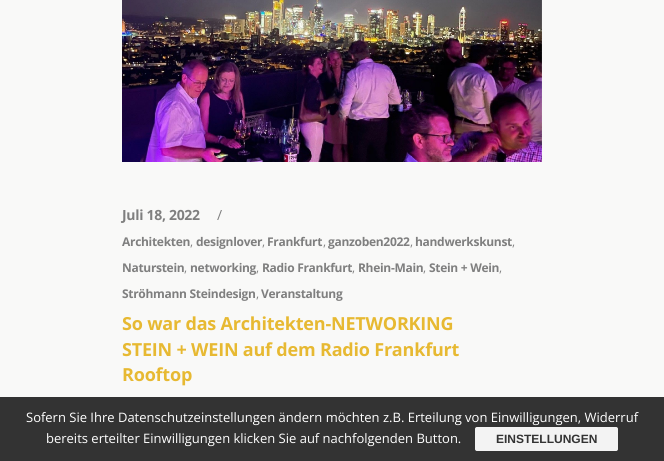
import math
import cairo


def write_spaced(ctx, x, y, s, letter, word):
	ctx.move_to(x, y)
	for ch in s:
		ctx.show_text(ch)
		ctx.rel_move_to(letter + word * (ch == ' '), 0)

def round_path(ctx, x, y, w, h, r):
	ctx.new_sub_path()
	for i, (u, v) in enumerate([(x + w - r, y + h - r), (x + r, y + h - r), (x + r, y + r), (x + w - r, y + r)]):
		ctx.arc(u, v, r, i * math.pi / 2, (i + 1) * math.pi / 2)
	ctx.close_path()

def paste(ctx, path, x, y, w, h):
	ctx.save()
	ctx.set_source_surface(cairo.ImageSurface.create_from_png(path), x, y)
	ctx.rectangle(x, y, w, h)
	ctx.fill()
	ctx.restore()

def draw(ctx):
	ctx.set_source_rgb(0.976, 0.973, 0.969)
	ctx.paint()
	paste(ctx, 'media/1.png', 122, 0, 420, 162)
	ctx.select_font_face('Open Sans', cairo.FONT_SLANT_NORMAL, cairo.FONT_WEIGHT_BOLD)
	ctx.set_font_size(14)
	ctx.set_source_rgb(0.498, 0.498, 0.498)
	write_spaced(ctx, 122, 220, 'Juli 18, 2022', -0.3, 0)
	ctx.select_font_face('Open Sans')
	write_spaced(ctx, 217, 220, '/', -0.3, 0)
	ctx.select_font_face('Open Sans', cairo.FONT_SLANT_NORMAL, cairo.FONT_WEIGHT_BOLD)
	ctx.set_font_size(12)
	write_spaced(ctx, 122, 246, 'Architekten', -0.3, 0)
	ctx.select_font_face('Open Sans')
	write_spaced(ctx, 190, 246, ',', -0.3, 0)
	ctx.select_font_face('Open Sans', cairo.FONT_SLANT_NORMAL, cairo.FONT_WEIGHT_BOLD)
	write_spaced(ctx, 196, 246, 'designlover', -0.3, 0)
	ctx.select_font_face('Open Sans')
	write_spaced(ctx, 262, 246, ',', -0.3, 0)
	ctx.select_font_face('Open Sans', cairo.FONT_SLANT_NORMAL, cairo.FONT_WEIGHT_BOLD)
	write_spaced(ctx, 267, 246, 'Frankfurt', -0.3, 0)
	ctx.select_font_face('Open Sans')
	write_spaced(ctx, 323, 246, ',', -0.3, 0)
	ctx.select_font_face('Open Sans', cairo.FONT_SLANT_NORMAL, cairo.FONT_WEIGHT_BOLD)
	write_spaced(ctx, 328, 246, 'ganzoben2022', -0.3, 0)
	ctx.select_font_face('Open Sans')
	write_spaced(ctx, 410, 246, ',', -0.3, 0)
	ctx.select_font_face('Open Sans', cairo.FONT_SLANT_NORMAL, cairo.FONT_WEIGHT_BOLD)
	write_spaced(ctx, 415, 246, 'handwerkskunst', -0.3, 0)
	ctx.select_font_face('Open Sans')
	write_spaced(ctx, 512, 246, ',', -0.3, 0)
	ctx.select_font_face('Open Sans', cairo.FONT_SLANT_NORMAL, cairo.FONT_WEIGHT_BOLD)
	write_spaced(ctx, 122, 272, 'Naturstein', -0.3, 0)
	ctx.select_font_face('Open Sans')
	write_spaced(ctx, 184, 272, ',', -0.3, 0)
	ctx.select_font_face('Open Sans', cairo.FONT_SLANT_NORMAL, cairo.FONT_WEIGHT_BOLD)
	write_spaced(ctx, 190, 272, 'networking', -0.3, 0)
	ctx.select_font_face('Open Sans')
	write_spaced(ctx, 256, 272, ',', -0.3, 0)
	ctx.select_font_face('Open Sans', cairo.FONT_SLANT_NORMAL, cairo.FONT_WEIGHT_BOLD)
	write_spaced(ctx, 262, 272, 'Radio Frankfurt', -0.3, 0)
	ctx.select_font_face('Open Sans')
	write_spaced(ctx, 352, 272, ',', -0.3, 0)
	ctx.select_font_face('Open Sans', cairo.FONT_SLANT_NORMAL, cairo.FONT_WEIGHT_BOLD)
	write_spaced(ctx, 358, 272, 'Rhein-Main', -0.3, 0)
	ctx.select_font_face('Open Sans')
	write_spaced(ctx, 423, 272, ',', -0.3, 0)
	ctx.select_font_face('Open Sans', cairo.FONT_SLANT_NORMAL, cairo.FONT_WEIGHT_BOLD)
	write_spaced(ctx, 429, 272, 'Stein + Wein', -0.3, 0)
	ctx.select_font_face('Open Sans')
	write_spaced(ctx, 499, 272, ',', -0.3, 0)
	ctx.select_font_face('Open Sans', cairo.FONT_SLANT_NORMAL, cairo.FONT_WEIGHT_BOLD)
	write_spaced(ctx, 122, 298, 'Ströhmann Steindesign', -0.3, 0)
	ctx.select_font_face('Open Sans')
	write_spaced(ctx, 256, 298, ',', -0.3, 0)
	ctx.select_font_face('Open Sans', cairo.FONT_SLANT_NORMAL, cairo.FONT_WEIGHT_BOLD)
	write_spaced(ctx, 261, 298, 'Veranstaltung', -0.3, 0)
	ctx.set_font_size(18)
	ctx.set_source_rgb(0.906, 0.725, 0.196)
	for x, y, s in [
		(122, 330, 'So war das Architekten-NETWORKING'),
		(122, 356, 'STEIN + WEIN auf dem Radio Frankfurt'),
		(122, 381, 'Rooftop'),
	]:
		write_spaced(ctx, x, y, s, -0.2, 0)
	ctx.set_source_rgb(0.2, 0.2, 0.2)
	ctx.rectangle(0, 397, 664, 64)
	ctx.fill()
	ctx.select_font_face('Open Sans')
	ctx.set_font_size(13)
	ctx.set_source_rgb(1, 1, 1)
	ctx.move_to(26, 422)
	ctx.show_text('Sofern Sie Ihre Datenschutzeinstellungen ändern möchten z.B. Erteilung von Einwilligungen, Widerruf')
	ctx.move_to(46, 443)
	ctx.show_text('bereits erteilter Einwilligungen klicken Sie auf nachfolgenden Button.')
	ctx.set_source_rgb(0.953, 0.953, 0.953)
	round_path(ctx, 475.5, 427.5, 142, 23, 1.5)
	ctx.fill_preserve()
	ctx.set_line_width(1)
	ctx.stroke()
	ctx.select_font_face('Liberation Sans', cairo.FONT_SLANT_NORMAL, cairo.FONT_WEIGHT_BOLD)
	ctx.set_font_size(12)
	ctx.set_source_rgb(0.2, 0.2, 0.2)
	ctx.move_to(496, 443)
	ctx.show_text('EINSTELLUNGEN')


surface = cairo.ImageSurface(cairo.FORMAT_RGB24, 664, 461)
ctx = cairo.Context(surface)
options = cairo.FontOptions()
options.set_hint_metrics(cairo.HINT_METRICS_OFF)
options.set_hint_style(cairo.HINT_STYLE_NONE)
ctx.set_font_options(options)
ctx.set_miter_limit(4)
draw(ctx)
surface.write_to_png('image.png')
